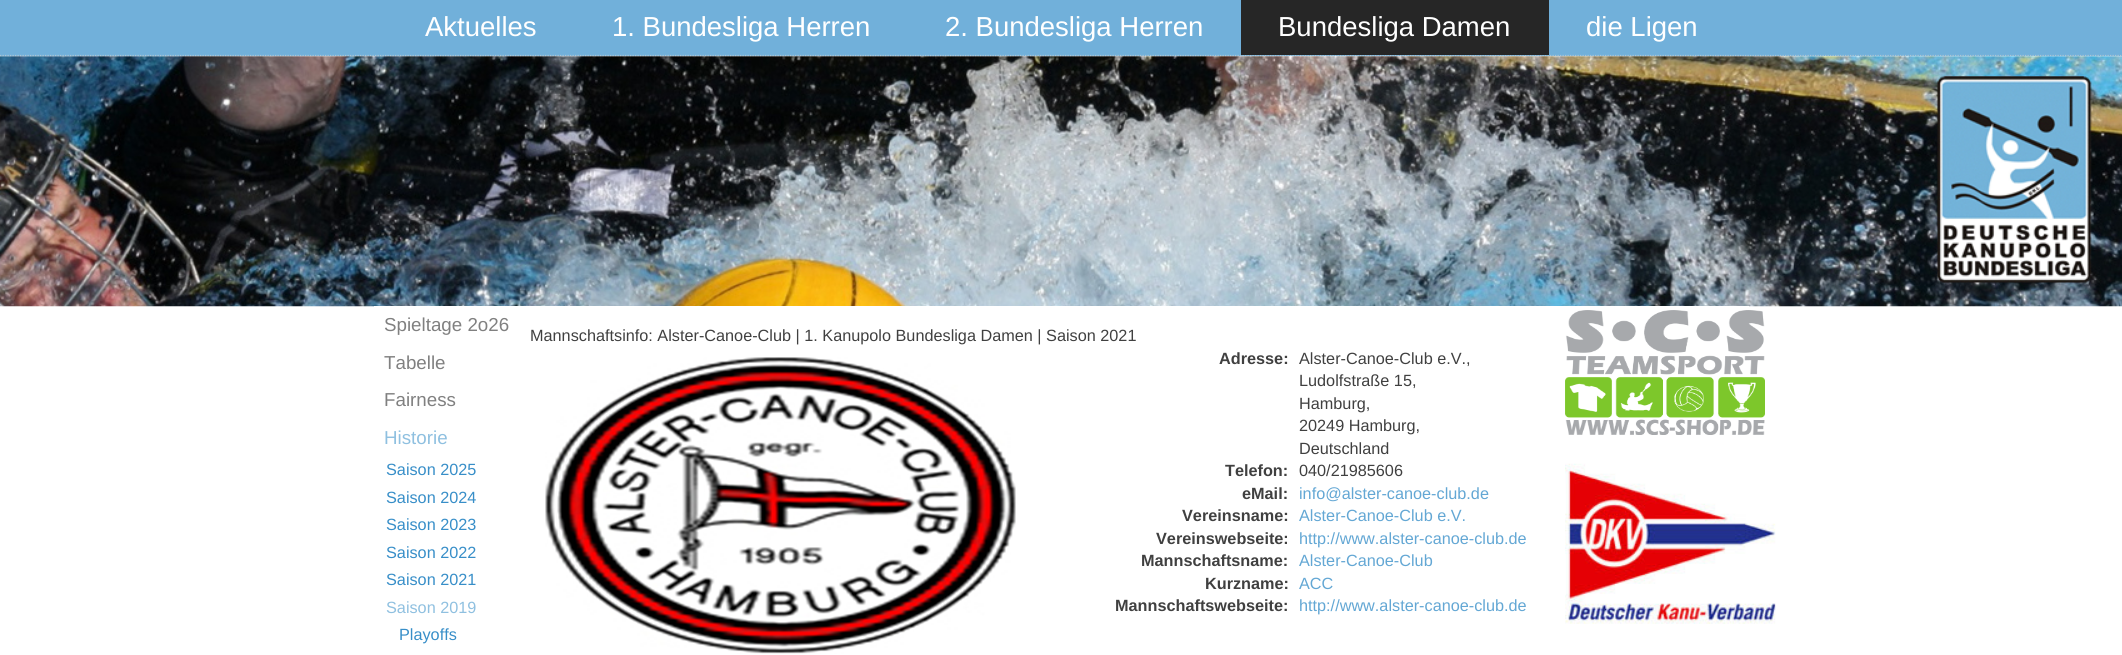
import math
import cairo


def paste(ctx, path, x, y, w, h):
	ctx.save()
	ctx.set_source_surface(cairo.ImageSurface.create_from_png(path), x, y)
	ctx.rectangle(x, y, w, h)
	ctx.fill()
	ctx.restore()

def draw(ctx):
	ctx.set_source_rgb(1, 1, 1)
	ctx.paint()
	ctx.set_source_rgb(0.443, 0.69, 0.855)
	ctx.rectangle(0, 0, 2122, 56)
	ctx.fill()
	paste(ctx, 'media/1.png', 0, 56, 2122, 251)
	ctx.new_path()
	ctx.move_to(0, 55.5)
	ctx.line_to(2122.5, 55.5)
	ctx.set_source_rgb(0.686, 0.776, 0.831)
	ctx.set_line_width(1.2)
	ctx.set_dash([1.25, 1.25])
	ctx.stroke()
	ctx.select_font_face('Liberation Sans')
	ctx.set_font_size(27.5)
	ctx.set_source_rgb(1, 1, 1)
	for x, y, s in [
		(425, 36, 'Aktuelles'),
		(612, 36, '1. Bundesliga Herren'),
		(945, 36, '2. Bundesliga Herren'),
	]:
		ctx.move_to(x, y)
		ctx.show_text(s)
	ctx.set_source_rgb(0.149, 0.149, 0.149)
	ctx.rectangle(1241, 0, 308, 55)
	ctx.fill()
	ctx.set_source_rgb(1, 1, 1)
	ctx.move_to(1278, 36)
	ctx.show_text('Bundesliga Damen')
	ctx.move_to(1586, 36)
	ctx.show_text('die Ligen')
	paste(ctx, 'media/2.png', 1936, 76, 156, 207)
	ctx.rectangle(374, 306, 1375, 1)
	ctx.fill()
	ctx.set_font_size(18.75)
	ctx.set_source_rgb(0.502, 0.502, 0.502)
	for x, y, s in [
		(384, 331, 'Spieltage 2o26'),
		(384, 369, 'Tabelle'),
		(384, 406, 'Fairness'),
	]:
		ctx.move_to(x, y)
		ctx.show_text(s)
	ctx.set_source_rgb(0.561, 0.753, 0.878)
	ctx.move_to(384, 444)
	ctx.show_text('Historie')
	ctx.set_font_size(16.25)
	ctx.set_source_rgb(0.216, 0.557, 0.784)
	for x, y, s in [
		(386, 475, 'Saison 2025'),
		(386, 503, 'Saison 2024'),
		(386, 530, 'Saison 2023'),
		(386, 558, 'Saison 2022'),
		(386, 585, 'Saison 2021'),
	]:
		ctx.move_to(x, y)
		ctx.show_text(s)
	ctx.set_source_rgb(0.561, 0.753, 0.878)
	ctx.move_to(386, 613)
	ctx.show_text('Saison 2019')
	ctx.set_source_rgb(0.216, 0.557, 0.784)
	ctx.move_to(399, 640)
	ctx.show_text('Playoffs')
	ctx.set_source_rgb(0.251, 0.251, 0.251)
	ctx.move_to(530, 341)
	ctx.show_text('Mannschaftsinfo: Alster-Canoe-Club | 1. Kanupolo Bundesliga Damen | Saison 2021')
	paste(ctx, 'media/3.png', 545, 357, 471, 297)
	ctx.select_font_face('Liberation Sans', cairo.FONT_SLANT_NORMAL, cairo.FONT_WEIGHT_BOLD)
	ctx.move_to(1219, 364)
	ctx.show_text('Adresse:')
	ctx.select_font_face('Liberation Sans')
	for x, y, s in [
		(1299, 364, 'Alster-Canoe-Club e.V.,'),
		(1299, 386, 'Ludolfstraße 15,'),
		(1299, 409, 'Hamburg,'),
		(1299, 431, '20249 Hamburg,'),
		(1299, 454, 'Deutschland'),
	]:
		ctx.move_to(x, y)
		ctx.show_text(s)
	ctx.select_font_face('Liberation Sans', cairo.FONT_SLANT_NORMAL, cairo.FONT_WEIGHT_BOLD)
	ctx.move_to(1225, 476)
	ctx.show_text('Telefon:')
	ctx.select_font_face('Liberation Sans')
	ctx.move_to(1299, 476)
	ctx.show_text('040/21985606')
	ctx.select_font_face('Liberation Sans', cairo.FONT_SLANT_NORMAL, cairo.FONT_WEIGHT_BOLD)
	ctx.move_to(1242, 499)
	ctx.show_text('eMail:')
	ctx.select_font_face('Liberation Sans')
	ctx.set_source_rgb(0.388, 0.655, 0.831)
	ctx.move_to(1299, 499)
	ctx.show_text('info@alster-canoe-club.de')
	ctx.select_font_face('Liberation Sans', cairo.FONT_SLANT_NORMAL, cairo.FONT_WEIGHT_BOLD)
	ctx.set_source_rgb(0.251, 0.251, 0.251)
	ctx.move_to(1182, 521)
	ctx.show_text('Vereinsname:')
	ctx.select_font_face('Liberation Sans')
	ctx.set_source_rgb(0.388, 0.655, 0.831)
	ctx.move_to(1299, 521)
	ctx.show_text('Alster-Canoe-Club e.V.')
	ctx.select_font_face('Liberation Sans', cairo.FONT_SLANT_NORMAL, cairo.FONT_WEIGHT_BOLD)
	ctx.set_source_rgb(0.251, 0.251, 0.251)
	ctx.move_to(1156, 544)
	ctx.show_text('Vereinswebseite:')
	ctx.select_font_face('Liberation Sans')
	ctx.set_source_rgb(0.388, 0.655, 0.831)
	ctx.move_to(1299, 544)
	ctx.show_text('http://www.alster-canoe-club.de')
	ctx.select_font_face('Liberation Sans', cairo.FONT_SLANT_NORMAL, cairo.FONT_WEIGHT_BOLD)
	ctx.set_source_rgb(0.251, 0.251, 0.251)
	ctx.move_to(1141, 566)
	ctx.show_text('Mannschaftsname:')
	ctx.select_font_face('Liberation Sans')
	ctx.set_source_rgb(0.388, 0.655, 0.831)
	ctx.move_to(1299, 566)
	ctx.show_text('Alster-Canoe-Club')
	ctx.select_font_face('Liberation Sans', cairo.FONT_SLANT_NORMAL, cairo.FONT_WEIGHT_BOLD)
	ctx.set_source_rgb(0.251, 0.251, 0.251)
	ctx.move_to(1205, 589)
	ctx.show_text('Kurzname:')
	ctx.select_font_face('Liberation Sans')
	ctx.set_source_rgb(0.388, 0.655, 0.831)
	ctx.move_to(1299, 589)
	ctx.show_text('ACC')
	ctx.select_font_face('Liberation Sans', cairo.FONT_SLANT_NORMAL, cairo.FONT_WEIGHT_BOLD)
	ctx.set_source_rgb(0.251, 0.251, 0.251)
	ctx.move_to(1115, 611)
	ctx.show_text('Mannschaftswebseite:')
	ctx.select_font_face('Liberation Sans')
	ctx.set_source_rgb(0.388, 0.655, 0.831)
	ctx.move_to(1299, 611)
	ctx.show_text('http://www.alster-canoe-club.de')
	paste(ctx, 'media/4.png', 1565, 310, 200, 125)
	paste(ctx, 'media/5.png', 1565, 463, 211, 161)


surface = cairo.ImageSurface(cairo.FORMAT_RGB24, 2122, 655)
ctx = cairo.Context(surface)
options = cairo.FontOptions()
options.set_hint_metrics(cairo.HINT_METRICS_OFF)
options.set_hint_style(cairo.HINT_STYLE_NONE)
ctx.set_font_options(options)
ctx.set_miter_limit(4)
draw(ctx)
surface.write_to_png('image.png')
